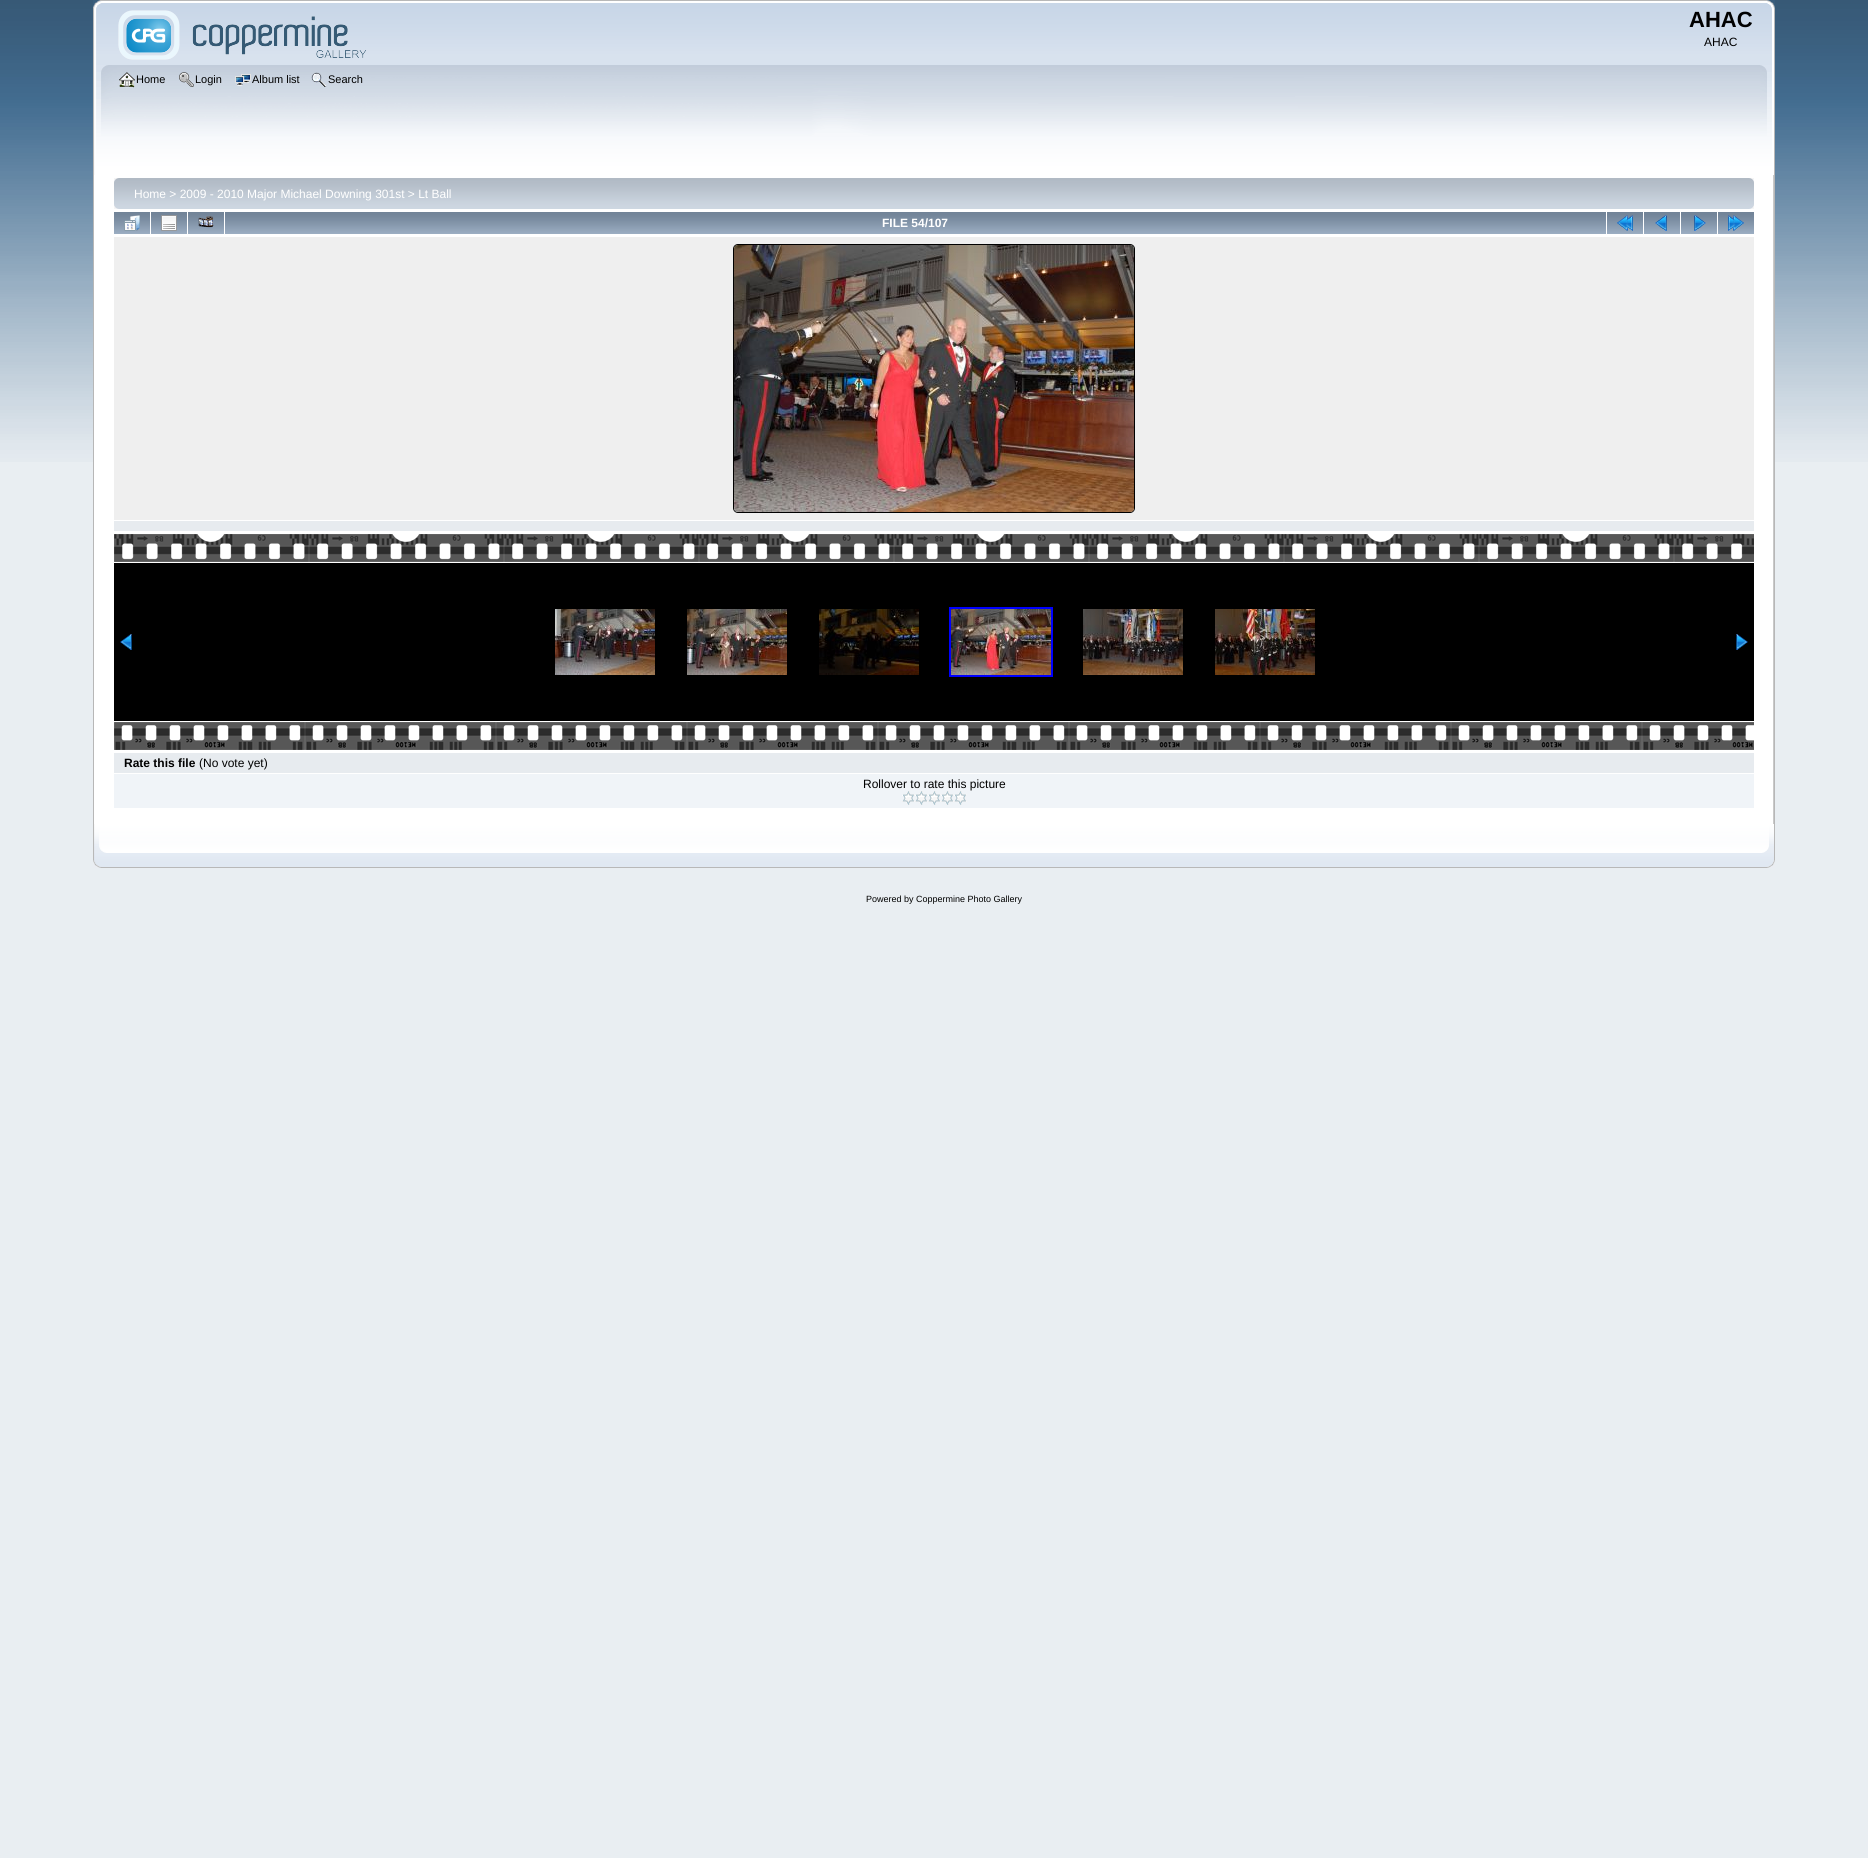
import math
import cairo


def round_path(ctx, x, y, w, h, r):
	ctx.new_sub_path()
	for i, (u, v) in enumerate([(x + w - r, y + h - r), (x + r, y + h - r), (x + r, y + r), (x + w - r, y + r)]):
		ctx.arc(u, v, r, i * math.pi / 2, (i + 1) * math.pi / 2)
	ctx.close_path()

def paste(ctx, path, x, y, w, h):
	ctx.save()
	ctx.set_source_surface(cairo.ImageSurface.create_from_png(path), x, y)
	ctx.rectangle(x, y, w, h)
	ctx.fill()
	ctx.restore()

def draw(ctx):
	ctx.set_source_rgb(0.914, 0.933, 0.949)
	ctx.paint()
	paste(ctx, 'media/1.png', 0, 0, 1868, 462)
	paste(ctx, 'media/2.png', 93, 0, 1674, 65)
	paste(ctx, 'media/3.png', 1767, 0, 8, 65)
	paste(ctx, 'media/4.png', 118, 10, 248, 50)
	ctx.select_font_face('Liberation Sans', cairo.FONT_SLANT_NORMAL, cairo.FONT_WEIGHT_BOLD)
	ctx.set_font_size(22)
	ctx.set_source_rgb(0, 0, 0)
	ctx.move_to(1689, 27)
	ctx.show_text('AHAC')
	ctx.select_font_face('Liberation Sans')
	ctx.set_font_size(12)
	ctx.move_to(1704, 46)
	ctx.show_text('AHAC')
	paste(ctx, 'media/5.png', 93, 65, 1667, 110)
	paste(ctx, 'media/6.png', 1760, 65, 15, 110)
	paste(ctx, 'media/7.png', 119, 72, 16, 16)
	ctx.set_font_size(11)
	ctx.move_to(136, 83)
	ctx.show_text('Home')
	paste(ctx, 'media/8.png', 179, 72, 15, 15)
	ctx.move_to(195, 83)
	ctx.show_text('Login')
	paste(ctx, 'media/9.png', 235, 74, 16, 12)
	ctx.move_to(252, 83)
	ctx.show_text('Album list')
	paste(ctx, 'media/10.png', 311, 72, 16, 15)
	ctx.move_to(328, 83)
	ctx.show_text('Search')
	ctx.set_source_rgb(1, 1, 1)
	ctx.rectangle(94, 175, 1679, 649)
	ctx.fill()
	ctx.set_source_rgb(0.718, 0.718, 0.718)
	ctx.rectangle(93, 175, 1, 649)
	ctx.fill()
	paste(ctx, 'media/11.png', 1773, 175, 2, 649)
	paste(ctx, 'media/12.png', 114, 178, 1635, 31)
	paste(ctx, 'media/13.png', 1749, 178, 5, 31)
	ctx.set_font_size(12)
	ctx.set_source_rgb(1, 1, 1)
	ctx.move_to(134, 198)
	ctx.show_text('Home > 2009 - 2010 Major Michael Downing 301st > Lt Ball')
	paste(ctx, 'media/14.png', 114, 212, 36, 22)
	paste(ctx, 'media/15.png', 124, 215, 16, 16)
	paste(ctx, 'media/14.png', 151, 212, 36, 22)
	paste(ctx, 'media/16.png', 161, 215, 16, 16)
	paste(ctx, 'media/14.png', 188, 212, 36, 22)
	paste(ctx, 'media/17.png', 198, 216, 16, 12)
	paste(ctx, 'media/18.png', 225, 212, 1381, 22)
	ctx.select_font_face('Liberation Sans', cairo.FONT_SLANT_NORMAL, cairo.FONT_WEIGHT_BOLD)
	ctx.move_to(882, 227)
	ctx.show_text('FILE 54/107')
	paste(ctx, 'media/14.png', 1607, 212, 36, 22)
	paste(ctx, 'media/19.png', 1617, 215, 16, 16)
	paste(ctx, 'media/14.png', 1644, 212, 36, 22)
	paste(ctx, 'media/20.png', 1655, 215, 12, 16)
	paste(ctx, 'media/14.png', 1681, 212, 36, 22)
	paste(ctx, 'media/21.png', 1694, 215, 12, 16)
	paste(ctx, 'media/14.png', 1718, 212, 36, 22)
	paste(ctx, 'media/22.png', 1728, 215, 16, 16)
	ctx.set_source_rgb(0.937, 0.937, 0.937)
	ctx.rectangle(114, 237, 1640, 283)
	ctx.fill()
	round_path(ctx, 733.5, 244.5, 401, 268, 4.5)
	ctx.set_source_rgb(0, 0, 0)
	ctx.set_line_width(1)
	ctx.stroke()
	paste(ctx, 'media/23.png', 734, 245, 400, 267)
	ctx.set_source_rgb(0.906, 0.918, 0.937)
	ctx.rectangle(114, 521, 1640, 10)
	ctx.fill()
	paste(ctx, 'media/24.png', 114, 534, 1640, 28)
	ctx.set_source_rgb(0, 0, 0)
	ctx.rectangle(114, 563, 1640, 158)
	ctx.fill()
	paste(ctx, 'media/25.png', 120, 634, 12, 16)
	paste(ctx, 'media/26.png', 555, 609, 100, 66)
	paste(ctx, 'media/27.png', 687, 609, 100, 66)
	paste(ctx, 'media/28.png', 819, 609, 100, 66)
	ctx.rectangle(950, 608, 102, 68)
	ctx.set_source_rgb(0, 0, 1)
	ctx.set_line_width(2)
	ctx.stroke()
	paste(ctx, 'media/29.png', 951, 609, 100, 66)
	paste(ctx, 'media/30.png', 1083, 609, 100, 66)
	paste(ctx, 'media/31.png', 1215, 609, 100, 66)
	paste(ctx, 'media/32.png', 1736, 634, 12, 16)
	paste(ctx, 'media/33.png', 114, 722, 1640, 28)
	ctx.set_source_rgb(0.906, 0.918, 0.937)
	ctx.rectangle(114, 753, 1640, 20)
	ctx.fill()
	ctx.set_source_rgb(0, 0, 0)
	ctx.move_to(124, 767)
	ctx.show_text('Rate this file')
	ctx.select_font_face('Liberation Sans')
	ctx.move_to(199, 767)
	ctx.show_text('(No vote yet)')
	ctx.set_source_rgb(0.941, 0.957, 0.969)
	ctx.rectangle(114, 774, 1640, 34)
	ctx.fill()
	ctx.set_source_rgb(0, 0, 0)
	ctx.move_to(863, 788)
	ctx.show_text('Rollover to rate this picture')
	paste(ctx, 'media/34.png', 902, 791, 13, 14)
	paste(ctx, 'media/34.png', 915, 791, 13, 14)
	paste(ctx, 'media/34.png', 928, 791, 13, 14)
	paste(ctx, 'media/34.png', 941, 791, 13, 14)
	paste(ctx, 'media/34.png', 954, 791, 13, 14)
	paste(ctx, 'media/35.png', 93, 824, 1669, 44)
	paste(ctx, 'media/36.png', 1762, 824, 13, 44)
	ctx.set_font_size(9)
	ctx.move_to(866, 902)
	ctx.show_text('Powered by Coppermine Photo Gallery')


surface = cairo.ImageSurface(cairo.FORMAT_RGB24, 1868, 1858)
ctx = cairo.Context(surface)
options = cairo.FontOptions()
options.set_hint_metrics(cairo.HINT_METRICS_OFF)
options.set_hint_style(cairo.HINT_STYLE_NONE)
ctx.set_font_options(options)
ctx.set_miter_limit(4)
draw(ctx)
surface.write_to_png('image.png')
